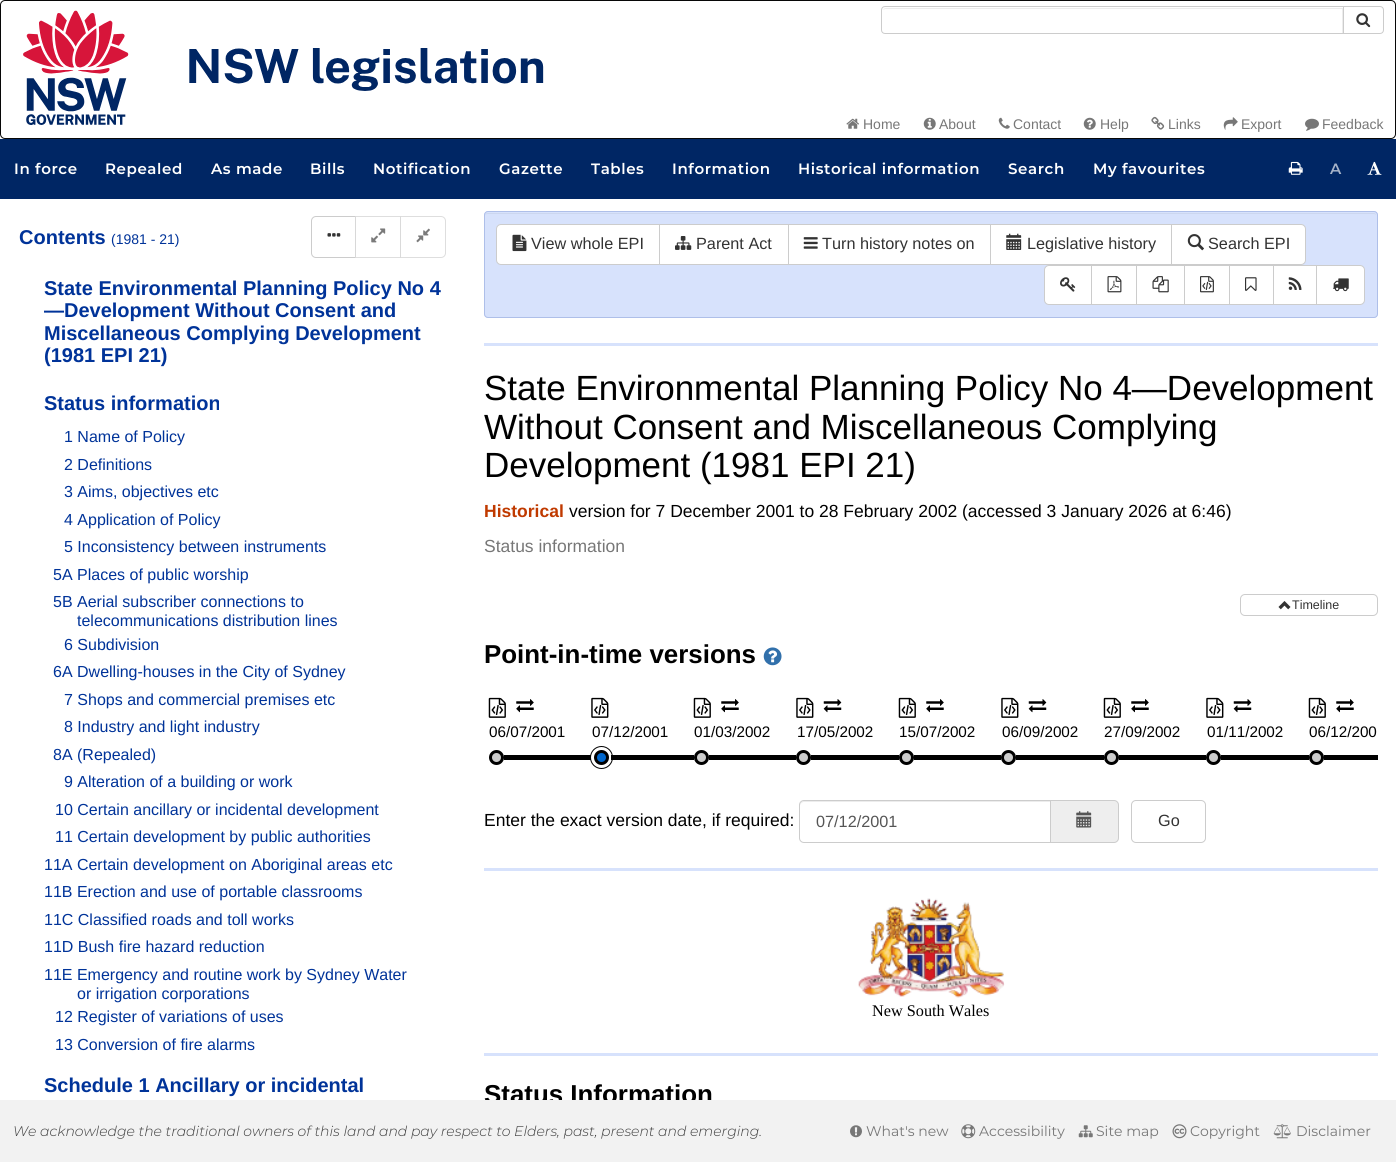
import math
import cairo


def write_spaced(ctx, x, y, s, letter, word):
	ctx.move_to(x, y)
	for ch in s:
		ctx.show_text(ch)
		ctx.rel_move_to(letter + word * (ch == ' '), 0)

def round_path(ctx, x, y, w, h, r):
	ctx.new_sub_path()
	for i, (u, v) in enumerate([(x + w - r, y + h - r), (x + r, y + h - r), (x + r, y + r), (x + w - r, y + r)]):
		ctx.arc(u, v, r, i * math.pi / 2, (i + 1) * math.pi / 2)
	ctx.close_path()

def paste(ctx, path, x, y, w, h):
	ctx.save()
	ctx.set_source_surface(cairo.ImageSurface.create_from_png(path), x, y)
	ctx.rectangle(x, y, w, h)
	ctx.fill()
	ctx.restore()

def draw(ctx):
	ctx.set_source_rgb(1, 1, 1)
	ctx.paint()
	round_path(ctx, 0.5, 0.5, 1395, 138, 4.5)
	ctx.set_source_rgb(0.031, 0.031, 0.031)
	ctx.set_line_width(1)
	ctx.stroke()
	paste(ctx, 'media/1.png', 23, 10, 521, 115)
	ctx.new_path()
	ctx.move_to(1343.5, 6.5)
	ctx.line_to(1380, 6.5)
	ctx.curve_to(1382, 6.5, 1383.5, 8, 1383.5, 10)
	ctx.line_to(1383.5, 30)
	ctx.curve_to(1383.5, 32, 1382, 33.5, 1380, 33.5)
	ctx.line_to(1343.5, 33.5)
	ctx.close_path()
	ctx.set_source_rgb(0.8, 0.8, 0.8)
	ctx.stroke()
	ctx.set_source_rgb(1, 1, 1)
	ctx.new_path()
	ctx.move_to(885, 6)
	ctx.line_to(1344, 6)
	ctx.line_to(1344, 34)
	ctx.line_to(885, 34)
	ctx.curve_to(883, 34, 881, 32, 881, 30)
	ctx.line_to(881, 10)
	ctx.curve_to(881, 8, 883, 6, 885, 6)
	ctx.close_path()
	ctx.fill()
	ctx.set_source_rgb(0.925, 0.925, 0.925)
	ctx.new_path()
	ctx.move_to(885, 9)
	ctx.line_to(1342, 9)
	ctx.line_to(1342, 33)
	ctx.line_to(1343, 33)
	ctx.line_to(1343, 8)
	ctx.line_to(886, 8)
	ctx.curve_to(884, 8, 884, 9, 883, 10)
	ctx.close_path()
	ctx.fill()
	ctx.new_path()
	ctx.move_to(885, 6.5)
	ctx.line_to(1343.5, 6.5)
	ctx.line_to(1343.5, 33.5)
	ctx.line_to(885, 33.5)
	ctx.curve_to(883, 33.5, 881.5, 32, 881.5, 30)
	ctx.line_to(881.5, 10)
	ctx.curve_to(881.5, 8, 883, 6.5, 885, 6.5)
	ctx.close_path()
	ctx.set_source_rgb(0.8, 0.8, 0.8)
	ctx.stroke()
	paste(ctx, 'media/2.png', 1356, 13, 15, 15)
	paste(ctx, 'media/3.png', 846, 118, 13, 11)
	ctx.select_font_face('Liberation Sans')
	ctx.set_font_size(14)
	ctx.set_source_rgb(0.467, 0.467, 0.467)
	ctx.move_to(863, 129)
	ctx.show_text('Home')
	paste(ctx, 'media/4.png', 923, 117, 13, 13)
	ctx.move_to(939, 129)
	ctx.show_text('About')
	paste(ctx, 'media/5.png', 998, 117, 12, 12)
	ctx.move_to(1013, 129)
	ctx.show_text('Contact')
	paste(ctx, 'media/6.png', 1083, 117, 13, 13)
	ctx.move_to(1100, 129)
	ctx.show_text('Help')
	paste(ctx, 'media/7.png', 1151, 116, 14, 14)
	ctx.move_to(1168, 129)
	ctx.show_text('Links')
	paste(ctx, 'media/8.png', 1223, 117, 15, 13)
	ctx.move_to(1241, 129)
	ctx.show_text('Export')
	paste(ctx, 'media/9.png', 1305, 118, 14, 13)
	ctx.move_to(1322, 129)
	ctx.show_text('Feedback')
	ctx.set_source_rgb(0, 0.149, 0.392)
	ctx.rectangle(0, 139, 1396, 60)
	ctx.fill()
	ctx.select_font_face('Montserrat SemiBold')
	ctx.set_font_size(15)
	ctx.set_source_rgb(1, 1, 1)
	for x, y, s in [
		(14, 174, 'In force'),
		(105, 174, 'Repealed'),
		(211, 174, 'As made'),
		(310, 174, 'Bills'),
		(373, 174, 'Notification'),
		(499, 174, 'Gazette'),
		(591, 174, 'Tables'),
		(672, 174, 'Information'),
		(798, 174, 'Historical information'),
		(1008, 174, 'Search'),
		(1093, 174, 'My favourites'),
	]:
		write_spaced(ctx, x, y, s, 0.6, 0)
	paste(ctx, 'media/10.png', 1288, 161, 15, 14)
	ctx.set_source_rgb(0.651, 0.702, 0.788)
	write_spaced(ctx, 1330, 174, 'A', 0.6, 0)
	paste(ctx, 'media/11.png', 1367, 161, 15, 14)
	ctx.select_font_face('Liberation Sans', cairo.FONT_SLANT_NORMAL, cairo.FONT_WEIGHT_BOLD)
	ctx.set_font_size(20)
	ctx.set_source_rgb(0, 0.2, 0.6)
	ctx.move_to(19, 244)
	ctx.show_text('Contents')
	ctx.select_font_face('Liberation Sans')
	ctx.set_font_size(14)
	ctx.move_to(111, 244)
	ctx.show_text('(1981 - 21)')
	ctx.new_path()
	ctx.move_to(316, 216.5)
	ctx.line_to(355.5, 216.5)
	ctx.line_to(355.5, 257.5)
	ctx.line_to(316, 257.5)
	ctx.curve_to(313.5, 257.5, 311.5, 255.5, 311.5, 253)
	ctx.line_to(311.5, 221)
	ctx.curve_to(311.5, 218.5, 313.5, 216.5, 316, 216.5)
	ctx.close_path()
	ctx.set_source_rgb(0.8, 0.8, 0.8)
	ctx.stroke()
	paste(ctx, 'media/12.png', 327, 233, 14, 4)
	ctx.set_source_rgba(1, 1, 1, 0.65)
	ctx.rectangle(355, 216, 1, 42)
	ctx.fill()
	ctx.rectangle(355.5, 216.5, 45, 41)
	ctx.set_source_rgba(0.8, 0.8, 0.8, 0.65)
	ctx.stroke()
	paste(ctx, 'media/13.png', 371, 228, 15, 15)
	ctx.set_source_rgba(1, 1, 1, 0.65)
	ctx.new_path()
	ctx.move_to(400, 216)
	ctx.line_to(441, 216)
	ctx.curve_to(444, 216, 446, 218, 446, 221)
	ctx.line_to(446, 253)
	ctx.curve_to(446, 256, 444, 258, 441, 258)
	ctx.line_to(400, 258)
	ctx.close_path()
	ctx.fill()
	ctx.new_path()
	ctx.move_to(400.5, 216.5)
	ctx.line_to(441, 216.5)
	ctx.curve_to(443.5, 216.5, 445.5, 218.5, 445.5, 221)
	ctx.line_to(445.5, 253)
	ctx.curve_to(445.5, 255.5, 443.5, 257.5, 441, 257.5)
	ctx.line_to(400.5, 257.5)
	ctx.close_path()
	ctx.set_source_rgba(0.8, 0.8, 0.8, 0.65)
	ctx.stroke()
	paste(ctx, 'media/14.png', 416, 228, 14, 15)
	ctx.select_font_face('Liberation Sans', cairo.FONT_SLANT_NORMAL, cairo.FONT_WEIGHT_BOLD)
	ctx.set_font_size(20)
	ctx.set_source_rgb(0, 0.2, 0.6)
	for x, y, s in [
		(44, 295, 'State Environmental Planning Policy No 4'),
		(44, 317, '—Development Without Consent and'),
		(44, 340, 'Miscellaneous Complying Development'),
		(44, 362, '(1981 EPI 21)'),
		(44, 410, 'Status information'),
	]:
		ctx.move_to(x, y)
		ctx.show_text(s)
	ctx.select_font_face('Liberation Sans')
	ctx.set_font_size(16)
	for x, y, s in [
		(64, 442, '1 Name of Policy'),
		(64, 470, '2 Definitions'),
		(64, 497, '3 Aims, objectives etc'),
		(64, 525, '4 Application of Policy'),
		(64, 552, '5 Inconsistency between instruments'),
		(53, 580, '5A Places of public worship'),
		(53, 607, '5B Aerial subscriber connections to'),
		(77, 626, 'telecommunications distribution lines'),
		(64, 650, '6 Subdivision'),
		(53, 677, '6A Dwelling-houses in the City of Sydney'),
		(64, 705, '7 Shops and commercial premises etc'),
		(64, 732, '8 Industry and light industry'),
		(53, 760, '8A (Repealed)'),
		(64, 787, '9 Alteration of a building or work'),
		(55, 815, '10 Certain ancillary or incidental development'),
		(55, 842, '11 Certain development by public authorities'),
		(44, 870, '11A Certain development on Aboriginal areas etc'),
		(44, 897, '11B Erection and use of portable classrooms'),
		(44, 925, '11C Classified roads and toll works'),
		(44, 952, '11D Bush fire hazard reduction'),
		(44, 980, '11E Emergency and routine work by Sydney Water'),
		(77, 999, 'or irrigation corporations'),
		(55, 1022, '12 Register of variations of uses'),
		(55, 1050, '13 Conversion of fire alarms'),
	]:
		ctx.move_to(x, y)
		ctx.show_text(s)
	ctx.select_font_face('Liberation Sans', cairo.FONT_SLANT_NORMAL, cairo.FONT_WEIGHT_BOLD)
	ctx.set_font_size(20)
	ctx.move_to(44, 1092)
	ctx.show_text('Schedule 1 Ancillary or incidental')
	ctx.set_source_rgb(0.843, 0.886, 0.988)
	round_path(ctx, 484, 211, 894, 107, 4)
	ctx.fill()
	ctx.set_source_rgb(0.8, 0.843, 0.937)
	ctx.new_path()
	ctx.move_to(488, 214)
	ctx.line_to(1374, 214)
	ctx.curve_to(1375, 214, 1376, 215, 1376, 216)
	ctx.curve_to(1376, 214, 1375, 213, 1374, 213)
	ctx.line_to(488, 213)
	ctx.curve_to(486, 213, 485, 214, 485, 216)
	ctx.curve_to(485, 215, 486, 214, 488, 214)
	ctx.close_path()
	ctx.fill()
	round_path(ctx, 484.5, 211.5, 893, 106, 3.5)
	ctx.set_source_rgb(0.682, 0.749, 0.914)
	ctx.stroke()
	ctx.set_source_rgb(1, 1, 1)
	ctx.new_path()
	ctx.move_to(501, 224.5)
	ctx.line_to(659.5, 224.5)
	ctx.line_to(659.5, 264.5)
	ctx.line_to(501, 264.5)
	ctx.curve_to(498.5, 264.5, 496.5, 262.5, 496.5, 260)
	ctx.line_to(496.5, 229)
	ctx.curve_to(496.5, 226.5, 498.5, 224.5, 501, 224.5)
	ctx.close_path()
	ctx.fill_preserve()
	ctx.set_source_rgb(0.8, 0.8, 0.8)
	ctx.stroke()
	paste(ctx, 'media/15.png', 512, 234, 15, 18)
	ctx.select_font_face('Liberation Sans')
	ctx.set_font_size(16.25)
	ctx.set_source_rgb(0.2, 0.2, 0.2)
	ctx.move_to(531, 249)
	ctx.show_text('View whole EPI')
	ctx.set_source_rgb(1, 1, 1)
	ctx.rectangle(659.5, 224.5, 129, 40)
	ctx.fill_preserve()
	ctx.set_source_rgb(0.8, 0.8, 0.8)
	ctx.stroke()
	paste(ctx, 'media/16.png', 675, 236, 17, 14)
	ctx.set_source_rgb(0.2, 0.2, 0.2)
	ctx.move_to(696, 249)
	ctx.show_text('Parent Act')
	ctx.set_source_rgb(1, 1, 1)
	ctx.rectangle(788.5, 224.5, 202, 40)
	ctx.fill_preserve()
	ctx.set_source_rgb(0.8, 0.8, 0.8)
	ctx.stroke()
	paste(ctx, 'media/17.png', 803, 237, 15, 12)
	ctx.set_source_rgb(0.2, 0.2, 0.2)
	ctx.move_to(822, 249)
	ctx.show_text('Turn history notes on')
	ctx.set_source_rgb(1, 1, 1)
	ctx.rectangle(991, 225, 180, 39)
	ctx.fill()
	ctx.rectangle(990.5, 224.5, 182, 40)
	ctx.set_source_rgb(0.8, 0.8, 0.8)
	ctx.stroke()
	paste(ctx, 'media/18.png', 1006, 233, 16, 17)
	ctx.set_source_rgb(0.2, 0.2, 0.2)
	ctx.move_to(1027, 249)
	ctx.show_text('Legislative history')
	ctx.set_source_rgb(1, 1, 1)
	ctx.new_path()
	ctx.move_to(1171.5, 224.5)
	ctx.line_to(1301, 224.5)
	ctx.curve_to(1303.5, 224.5, 1305.5, 226.5, 1305.5, 229)
	ctx.line_to(1305.5, 260)
	ctx.curve_to(1305.5, 262.5, 1303.5, 264.5, 1301, 264.5)
	ctx.line_to(1171.5, 264.5)
	ctx.close_path()
	ctx.fill_preserve()
	ctx.set_source_rgb(0.8, 0.8, 0.8)
	ctx.stroke()
	paste(ctx, 'media/19.png', 1187, 234, 17, 17)
	ctx.set_source_rgb(0.2, 0.2, 0.2)
	ctx.move_to(1208, 249)
	ctx.show_text('Search EPI')
	ctx.set_source_rgb(1, 1, 1)
	ctx.new_path()
	ctx.move_to(1049, 265.5)
	ctx.line_to(1092.5, 265.5)
	ctx.line_to(1092.5, 304.5)
	ctx.line_to(1049, 304.5)
	ctx.curve_to(1046.5, 304.5, 1044.5, 302.5, 1044.5, 300)
	ctx.line_to(1044.5, 270)
	ctx.curve_to(1044.5, 267.5, 1046.5, 265.5, 1049, 265.5)
	ctx.close_path()
	ctx.fill_preserve()
	ctx.set_source_rgb(0.8, 0.8, 0.8)
	ctx.stroke()
	paste(ctx, 'media/20.png', 1060, 277, 16, 15)
	ctx.set_source_rgb(1, 1, 1)
	ctx.rectangle(1092, 266, 44, 38)
	ctx.fill()
	ctx.rectangle(1091.5, 265.5, 46, 39)
	ctx.set_source_rgb(0.8, 0.8, 0.8)
	ctx.stroke()
	paste(ctx, 'media/21.png', 1107, 276, 15, 17)
	ctx.set_source_rgb(1, 1, 1)
	ctx.rectangle(1136.5, 265.5, 48, 39)
	ctx.fill_preserve()
	ctx.set_source_rgb(0.8, 0.8, 0.8)
	ctx.stroke()
	paste(ctx, 'media/22.png', 1152, 276, 17, 17)
	ctx.set_source_rgb(1, 1, 1)
	ctx.rectangle(1184.5, 265.5, 45, 39)
	ctx.fill_preserve()
	ctx.set_source_rgb(0.8, 0.8, 0.8)
	ctx.stroke()
	paste(ctx, 'media/23.png', 1200, 276, 14, 17)
	ctx.set_source_rgb(1, 1, 1)
	ctx.rectangle(1229.5, 265.5, 44, 39)
	ctx.fill_preserve()
	ctx.set_source_rgb(0.8, 0.8, 0.8)
	ctx.stroke()
	paste(ctx, 'media/24.png', 1245, 277, 12, 14)
	ctx.set_source_rgb(1, 1, 1)
	ctx.rectangle(1274, 266, 42, 38)
	ctx.fill()
	ctx.rectangle(1273.5, 265.5, 44, 39)
	ctx.set_source_rgb(0.8, 0.8, 0.8)
	ctx.stroke()
	paste(ctx, 'media/25.png', 1288, 277, 14, 13)
	ctx.set_source_rgb(1, 1, 1)
	ctx.new_path()
	ctx.move_to(1316.5, 265.5)
	ctx.line_to(1360, 265.5)
	ctx.curve_to(1362.5, 265.5, 1364.5, 267.5, 1364.5, 270)
	ctx.line_to(1364.5, 300)
	ctx.curve_to(1364.5, 302.5, 1362.5, 304.5, 1360, 304.5)
	ctx.line_to(1316.5, 304.5)
	ctx.close_path()
	ctx.fill_preserve()
	ctx.set_source_rgb(0.8, 0.8, 0.8)
	ctx.stroke()
	paste(ctx, 'media/26.png', 1333, 278, 16, 14)
	ctx.set_source_rgb(0.843, 0.886, 0.988)
	ctx.rectangle(484, 343, 894, 3)
	ctx.fill()
	ctx.set_font_size(35)
	ctx.set_source_rgb(0, 0, 0)
	for x, y, s in [
		(484, 400, 'State Environmental Planning Policy No 4—Development'),
		(484, 439, 'Without Consent and Miscellaneous Complying'),
		(484, 477, 'Development (1981 EPI 21)'),
	]:
		ctx.move_to(x, y)
		ctx.show_text(s)
	ctx.select_font_face('Liberation Sans', cairo.FONT_SLANT_NORMAL, cairo.FONT_WEIGHT_BOLD)
	ctx.set_font_size(17.5)
	ctx.set_source_rgb(0.753, 0.227, 0)
	ctx.move_to(484, 517)
	ctx.show_text('Historical')
	ctx.select_font_face('Liberation Sans')
	ctx.set_source_rgb(0, 0, 0)
	ctx.move_to(569, 517)
	ctx.show_text('version for 7 December 2001 to 28 February 2002 (accessed 3 January 2026 at 6:46)')
	ctx.set_source_rgb(0.467, 0.467, 0.467)
	ctx.move_to(484, 552)
	ctx.show_text('Status information')
	round_path(ctx, 1240.5, 594.5, 137, 21, 4.5)
	ctx.set_source_rgb(0.8, 0.8, 0.8)
	ctx.stroke()
	paste(ctx, 'media/27.png', 1278, 601, 13, 9)
	ctx.set_font_size(12.5)
	ctx.set_source_rgb(0.2, 0.2, 0.2)
	ctx.move_to(1292, 609)
	ctx.show_text('Timeline')
	ctx.select_font_face('Liberation Sans', cairo.FONT_SLANT_NORMAL, cairo.FONT_WEIGHT_BOLD)
	ctx.set_font_size(25.9)
	ctx.set_source_rgb(0, 0, 0)
	ctx.move_to(484, 663)
	ctx.show_text('Point-in-time versions')
	paste(ctx, 'media/28.png', 763, 647, 19, 19)
	paste(ctx, 'media/29.png', 488, 697, 18, 21)
	paste(ctx, 'media/30.png', 516, 699, 18, 14)
	ctx.select_font_face('Liberation Sans')
	ctx.set_font_size(15.25)
	ctx.move_to(489, 737)
	ctx.show_text('06/07/2001')
	ctx.set_source_rgb(0.8, 0.8, 0.8)
	ctx.new_path()
	ctx.arc(496.5, 757.5, 6, 0, 2 * math.pi)
	ctx.fill_preserve()
	ctx.set_source_rgb(0, 0, 0)
	ctx.set_line_width(3)
	ctx.stroke()
	ctx.arc(601.5, 757.5, 11, 0, 2 * math.pi)
	ctx.set_line_width(1)
	ctx.stroke()
	ctx.rectangle(504, 755, 87, 5)
	ctx.fill()
	paste(ctx, 'media/31.png', 591, 697, 18, 21)
	ctx.move_to(592, 737)
	ctx.show_text('07/12/2001')
	ctx.set_source_rgb(0, 0.4, 0.8)
	ctx.new_path()
	ctx.arc(601.5, 757.5, 6, 0, 2 * math.pi)
	ctx.fill_preserve()
	ctx.set_source_rgb(0, 0, 0)
	ctx.set_line_width(3)
	ctx.stroke()
	ctx.rectangle(611, 755, 83, 5)
	ctx.fill()
	paste(ctx, 'media/29.png', 693, 697, 18, 21)
	paste(ctx, 'media/30.png', 721, 699, 18, 14)
	ctx.move_to(694, 737)
	ctx.show_text('01/03/2002')
	ctx.set_source_rgb(0.8, 0.8, 0.8)
	ctx.new_path()
	ctx.arc(701.5, 757.5, 6, 0, 2 * math.pi)
	ctx.fill_preserve()
	ctx.set_source_rgb(0, 0, 0)
	ctx.stroke()
	ctx.rectangle(709, 755, 87, 5)
	ctx.fill()
	paste(ctx, 'media/31.png', 796, 697, 18, 21)
	paste(ctx, 'media/32.png', 823, 699, 19, 14)
	ctx.move_to(797, 737)
	ctx.show_text('17/05/2002')
	ctx.set_source_rgb(0.8, 0.8, 0.8)
	ctx.new_path()
	ctx.arc(803.5, 757.5, 6, 0, 2 * math.pi)
	ctx.fill_preserve()
	ctx.set_source_rgb(0, 0, 0)
	ctx.stroke()
	ctx.rectangle(811, 755, 88, 5)
	ctx.fill()
	paste(ctx, 'media/29.png', 898, 697, 18, 21)
	paste(ctx, 'media/30.png', 926, 699, 18, 14)
	ctx.move_to(899, 737)
	ctx.show_text('15/07/2002')
	ctx.set_source_rgb(0.8, 0.8, 0.8)
	ctx.new_path()
	ctx.arc(906.5, 757.5, 6, 0, 2 * math.pi)
	ctx.fill_preserve()
	ctx.set_source_rgb(0, 0, 0)
	ctx.stroke()
	ctx.rectangle(914, 755, 87, 5)
	ctx.fill()
	paste(ctx, 'media/31.png', 1001, 697, 18, 21)
	paste(ctx, 'media/32.png', 1028, 699, 19, 14)
	ctx.move_to(1002, 737)
	ctx.show_text('06/09/2002')
	ctx.set_source_rgb(0.8, 0.8, 0.8)
	ctx.new_path()
	ctx.arc(1008.5, 757.5, 6, 0, 2 * math.pi)
	ctx.fill_preserve()
	ctx.set_source_rgb(0, 0, 0)
	ctx.stroke()
	ctx.rectangle(1016, 755, 88, 5)
	ctx.fill()
	paste(ctx, 'media/29.png', 1103, 697, 18, 21)
	paste(ctx, 'media/30.png', 1131, 699, 18, 14)
	ctx.move_to(1104, 737)
	ctx.show_text('27/09/2002')
	ctx.set_source_rgb(0.8, 0.8, 0.8)
	ctx.new_path()
	ctx.arc(1111.5, 757.5, 6, 0, 2 * math.pi)
	ctx.fill_preserve()
	ctx.set_source_rgb(0, 0, 0)
	ctx.stroke()
	ctx.rectangle(1119, 755, 87, 5)
	ctx.fill()
	paste(ctx, 'media/31.png', 1206, 697, 18, 21)
	paste(ctx, 'media/32.png', 1233, 699, 19, 14)
	ctx.move_to(1207, 737)
	ctx.show_text('01/11/2002')
	ctx.set_source_rgb(0.8, 0.8, 0.8)
	ctx.new_path()
	ctx.arc(1213.5, 757.5, 6, 0, 2 * math.pi)
	ctx.fill_preserve()
	ctx.set_source_rgb(0, 0, 0)
	ctx.stroke()
	ctx.rectangle(1221, 755, 88, 5)
	ctx.fill()
	paste(ctx, 'media/29.png', 1308, 697, 18, 21)
	paste(ctx, 'media/30.png', 1336, 699, 18, 14)
	ctx.move_to(1309, 737)
	ctx.show_text('06/12/200')
	ctx.set_source_rgb(0.8, 0.8, 0.8)
	ctx.new_path()
	ctx.arc(1316.5, 757.5, 6, 0, 2 * math.pi)
	ctx.fill_preserve()
	ctx.set_source_rgb(0, 0, 0)
	ctx.stroke()
	ctx.rectangle(1324, 755, 54, 5)
	ctx.fill()
	ctx.set_font_size(17.5)
	ctx.move_to(484, 826)
	ctx.show_text('Enter the exact version date, if required:')
	ctx.set_source_rgb(0.933, 0.933, 0.933)
	ctx.new_path()
	ctx.move_to(1050.5, 800.5)
	ctx.line_to(1114, 800.5)
	ctx.curve_to(1116.5, 800.5, 1118.5, 802.5, 1118.5, 805)
	ctx.line_to(1118.5, 838)
	ctx.curve_to(1118.5, 840.5, 1116.5, 842.5, 1114, 842.5)
	ctx.line_to(1050.5, 842.5)
	ctx.close_path()
	ctx.fill_preserve()
	ctx.set_source_rgb(0.8, 0.8, 0.8)
	ctx.set_line_width(1)
	ctx.stroke()
	ctx.set_source_rgb(1, 1, 1)
	ctx.new_path()
	ctx.move_to(804, 800)
	ctx.line_to(1051, 800)
	ctx.line_to(1051, 843)
	ctx.line_to(804, 843)
	ctx.curve_to(801, 843, 799, 841, 799, 838)
	ctx.line_to(799, 805)
	ctx.curve_to(799, 802, 801, 800, 804, 800)
	ctx.close_path()
	ctx.fill()
	ctx.set_source_rgb(0.925, 0.925, 0.925)
	ctx.new_path()
	ctx.move_to(804, 802)
	ctx.line_to(1050, 802)
	ctx.line_to(1050, 801)
	ctx.line_to(804, 801)
	ctx.curve_to(802, 801, 800, 803, 800, 805)
	ctx.line_to(800, 806)
	ctx.curve_to(800, 804, 802, 802, 804, 802)
	ctx.close_path()
	ctx.fill()
	ctx.new_path()
	ctx.move_to(804, 800.5)
	ctx.line_to(1050.5, 800.5)
	ctx.line_to(1050.5, 842.5)
	ctx.line_to(804, 842.5)
	ctx.curve_to(801.5, 842.5, 799.5, 840.5, 799.5, 838)
	ctx.line_to(799.5, 805)
	ctx.curve_to(799.5, 802.5, 801.5, 800.5, 804, 800.5)
	ctx.close_path()
	ctx.set_source_rgb(0.8, 0.8, 0.8)
	ctx.stroke()
	ctx.set_font_size(16.25)
	ctx.set_source_rgb(0.333, 0.333, 0.333)
	ctx.move_to(816, 827)
	ctx.show_text('07/12/2001')
	paste(ctx, 'media/33.png', 1076, 811, 16, 17)
	round_path(ctx, 1131.5, 800.5, 74, 42, 4.5)
	ctx.set_source_rgb(0.8, 0.8, 0.8)
	ctx.stroke()
	ctx.set_source_rgb(0.2, 0.2, 0.2)
	ctx.move_to(1158, 826)
	ctx.show_text('Go')
	ctx.set_source_rgb(0.843, 0.886, 0.988)
	ctx.rectangle(484, 868, 894, 3)
	ctx.fill()
	paste(ctx, 'media/34.png', 858, 898, 147, 100)
	ctx.select_font_face('Liberation Serif')
	ctx.set_source_rgb(0, 0, 0)
	ctx.move_to(872, 1016)
	ctx.show_text('New South Wales')
	ctx.set_source_rgb(0.843, 0.886, 0.988)
	ctx.rectangle(484, 1053, 894, 3)
	ctx.fill()
	ctx.save()
	ctx.rectangle(465, 199, 931, 901)
	ctx.clip()
	ctx.select_font_face('Liberation Sans', cairo.FONT_SLANT_NORMAL, cairo.FONT_WEIGHT_BOLD)
	ctx.set_font_size(25.9)
	ctx.set_source_rgb(0, 0, 0)
	ctx.move_to(484, 1103)
	ctx.show_text('Status Information')
	ctx.restore()
	ctx.set_source_rgb(0.949, 0.949, 0.949)
	ctx.rectangle(0, 1100, 1396, 62)
	ctx.fill()
	ctx.select_font_face('Montserrat Light', cairo.FONT_SLANT_ITALIC)
	ctx.set_font_size(14)
	ctx.set_source_rgb(0.239, 0.239, 0.239)
	ctx.move_to(13, 1136)
	ctx.show_text('We acknowledge the traditional owners of this land and pay respect to Elders, past, present and emerging.')
	paste(ctx, 'media/35.png', 850, 1125, 12, 13)
	ctx.select_font_face('Montserrat')
	ctx.set_source_rgb(0.467, 0.467, 0.467)
	ctx.move_to(866, 1136)
	ctx.show_text('What\'s new')
	paste(ctx, 'media/36.png', 961, 1124, 15, 15)
	ctx.move_to(979, 1136)
	ctx.show_text('Accessibility')
	paste(ctx, 'media/37.png', 1078, 1125, 15, 13)
	ctx.move_to(1096, 1136)
	ctx.show_text('Site map')
	paste(ctx, 'media/38.png', 1172, 1124, 15, 15)
	ctx.move_to(1190, 1136)
	ctx.show_text('Copyright')
	paste(ctx, 'media/39.png', 1273, 1124, 18, 15)
	ctx.move_to(1296, 1136)
	ctx.show_text('Disclaimer')


surface = cairo.ImageSurface(cairo.FORMAT_RGB24, 1396, 1162)
ctx = cairo.Context(surface)
options = cairo.FontOptions()
options.set_hint_metrics(cairo.HINT_METRICS_OFF)
options.set_hint_style(cairo.HINT_STYLE_NONE)
ctx.set_font_options(options)
ctx.set_miter_limit(4)
draw(ctx)
surface.write_to_png('image.png')
